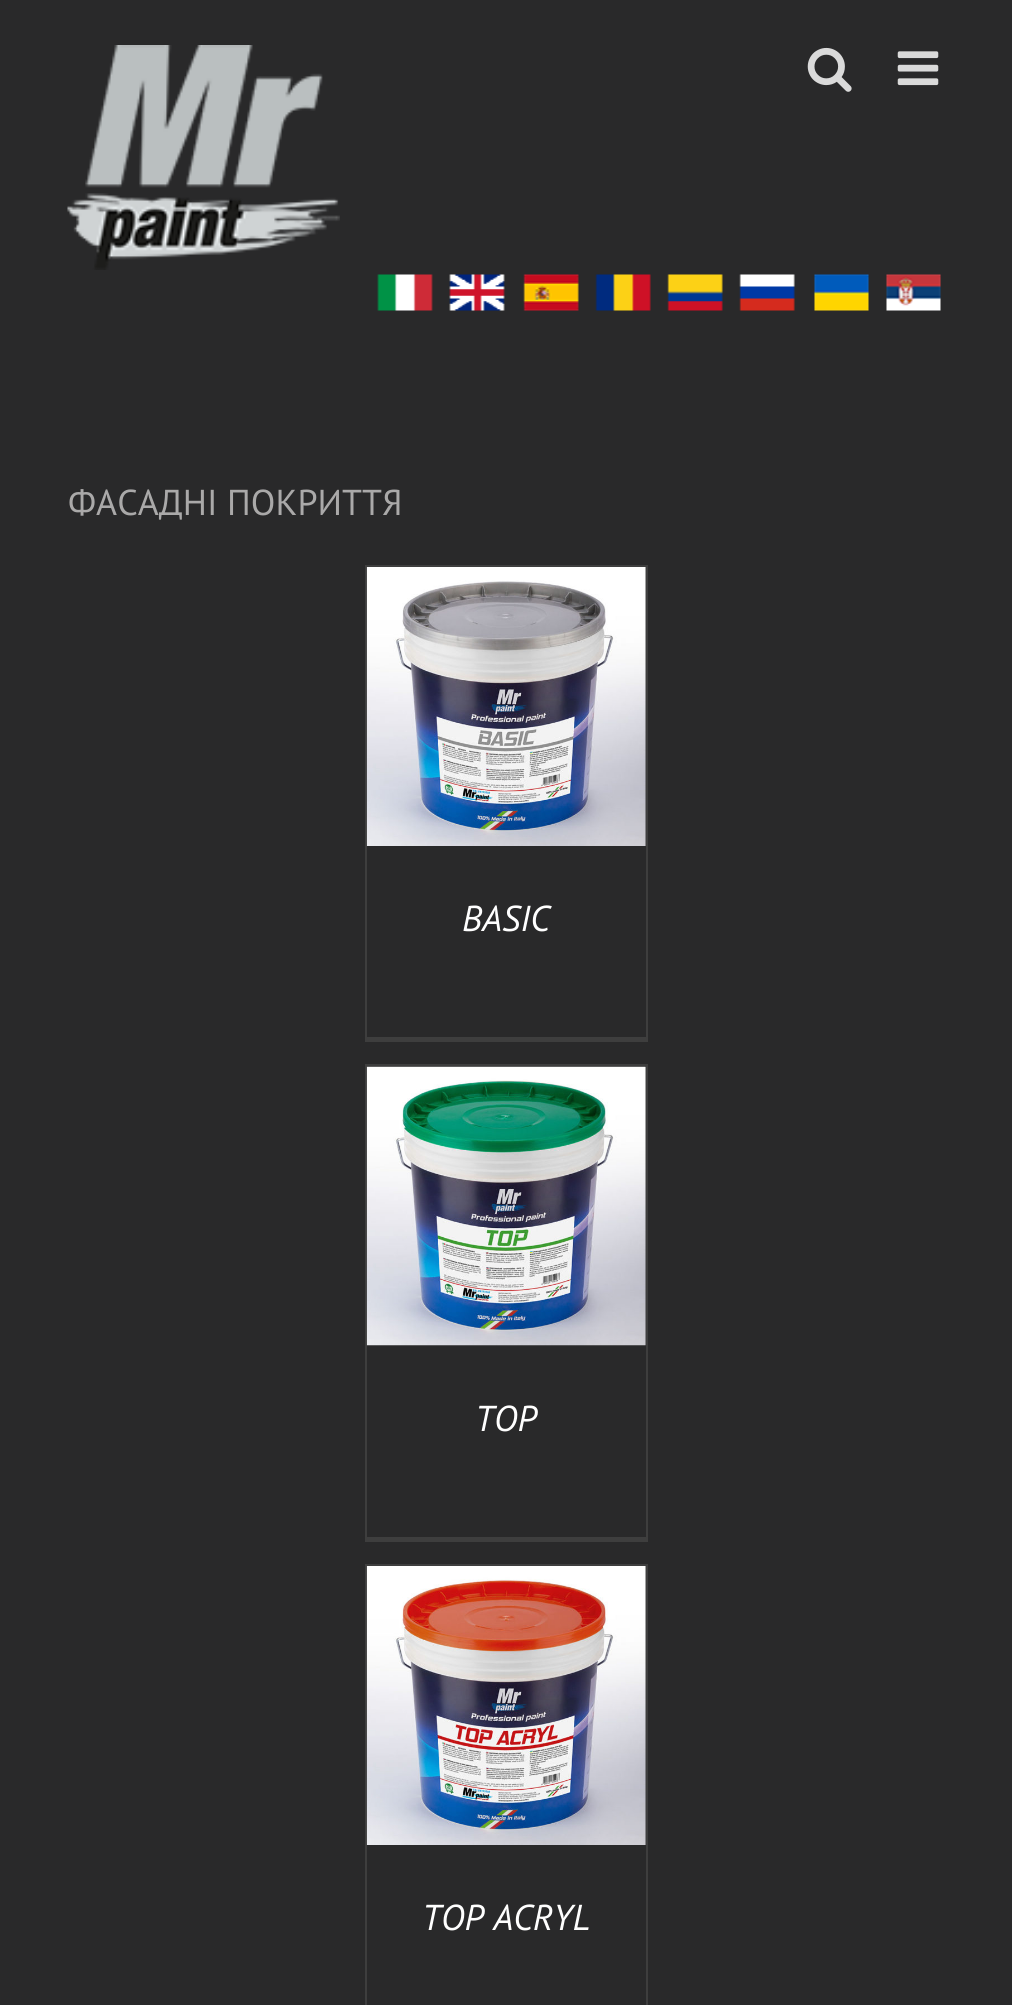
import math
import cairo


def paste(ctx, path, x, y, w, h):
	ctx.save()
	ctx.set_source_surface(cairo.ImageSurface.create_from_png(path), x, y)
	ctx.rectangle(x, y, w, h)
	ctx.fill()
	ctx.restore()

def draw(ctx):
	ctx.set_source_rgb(0.161, 0.161, 0.165)
	ctx.paint()
	paste(ctx, 'media/1.png', 67, 45, 273, 225)
	paste(ctx, 'media/2.png', 807, 47, 45, 45)
	paste(ctx, 'media/3.png', 897, 51, 42, 35)
	paste(ctx, 'media/4.png', 377, 274, 56, 37)
	paste(ctx, 'media/5.png', 449, 274, 56, 37)
	paste(ctx, 'media/6.png', 523, 274, 56, 37)
	paste(ctx, 'media/7.png', 595, 274, 56, 37)
	paste(ctx, 'media/8.png', 667, 274, 56, 37)
	paste(ctx, 'media/9.png', 739, 274, 56, 37)
	paste(ctx, 'media/10.png', 814, 274, 55, 37)
	paste(ctx, 'media/11.png', 886, 274, 55, 37)
	ctx.select_font_face('PT Sans')
	ctx.set_font_size(36)
	ctx.set_source_rgb(0.667, 0.663, 0.663)
	ctx.move_to(68, 515)
	ctx.show_text('ФАСАДНІ ПОКРИТТЯ')
	ctx.set_source_rgb(0.243, 0.243, 0.243)
	ctx.rectangle(365, 565, 283, 2)
	ctx.rectangle(646, 565, 2, 477)
	ctx.rectangle(365, 1037, 283, 5)
	ctx.rectangle(365, 565, 2, 477)
	ctx.fill()
	paste(ctx, 'media/12.png', 366, 567, 280, 279)
	ctx.select_font_face('PT Sans', cairo.FONT_SLANT_ITALIC)
	ctx.set_source_rgb(1, 1, 1)
	ctx.move_to(462, 931)
	ctx.show_text('BASIC')
	ctx.set_source_rgb(0.243, 0.243, 0.243)
	ctx.rectangle(365, 1064, 283, 2)
	ctx.rectangle(646, 1064, 2, 477)
	ctx.rectangle(365, 1537, 283, 5)
	ctx.rectangle(365, 1064, 2, 477)
	ctx.fill()
	paste(ctx, 'media/13.png', 366, 1066, 280, 280)
	ctx.set_source_rgb(1, 1, 1)
	ctx.move_to(475, 1431)
	ctx.show_text('TOP')
	ctx.set_source_rgb(0.243, 0.243, 0.243)
	ctx.rectangle(365, 1564, 283, 2)
	ctx.rectangle(646, 1564, 2, 441)
	ctx.rectangle(365, 1564, 2, 441)
	ctx.fill()
	paste(ctx, 'media/14.png', 366, 1566, 280, 279)
	ctx.set_source_rgb(1, 1, 1)
	ctx.move_to(422, 1930)
	ctx.show_text('TOP ACRYL')


surface = cairo.ImageSurface(cairo.FORMAT_RGB24, 1012, 2005)
ctx = cairo.Context(surface)
options = cairo.FontOptions()
options.set_hint_metrics(cairo.HINT_METRICS_OFF)
options.set_hint_style(cairo.HINT_STYLE_NONE)
ctx.set_font_options(options)
ctx.set_miter_limit(4)
draw(ctx)
surface.write_to_png('image.png')
